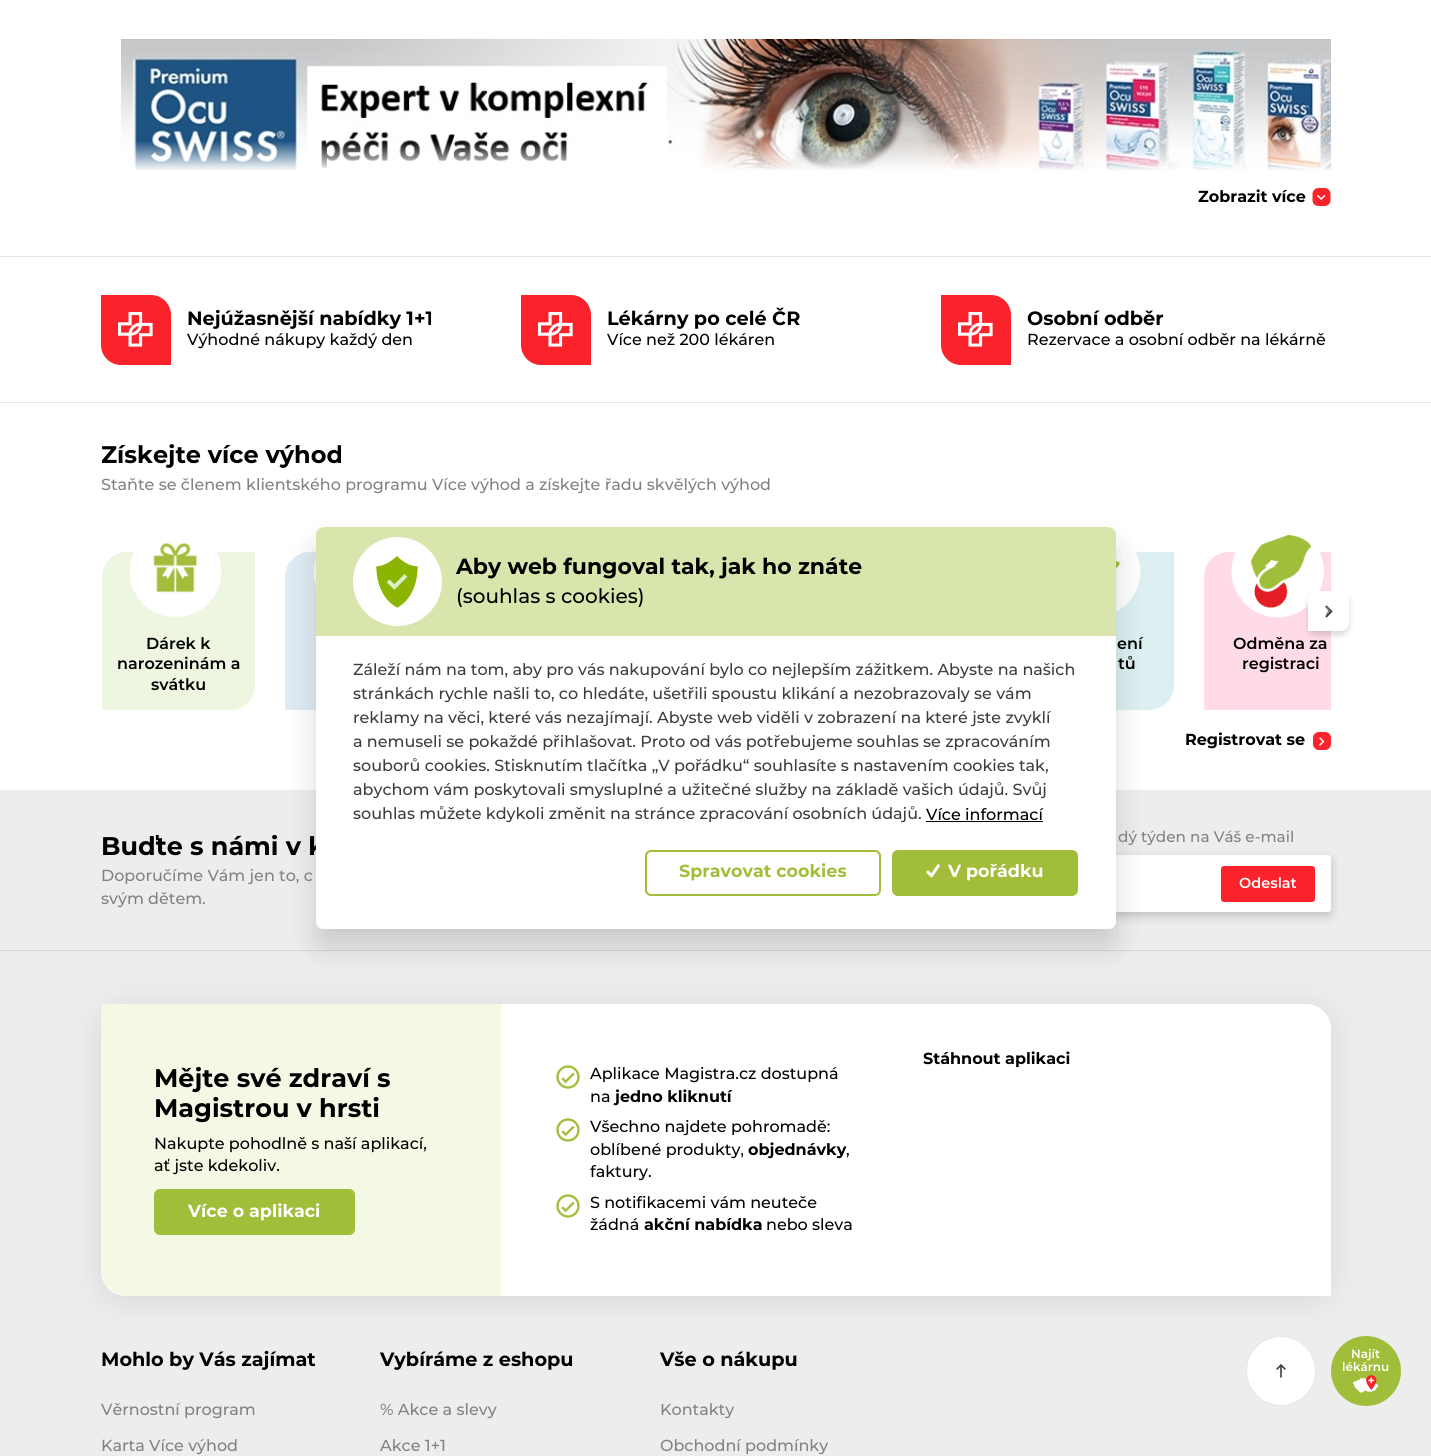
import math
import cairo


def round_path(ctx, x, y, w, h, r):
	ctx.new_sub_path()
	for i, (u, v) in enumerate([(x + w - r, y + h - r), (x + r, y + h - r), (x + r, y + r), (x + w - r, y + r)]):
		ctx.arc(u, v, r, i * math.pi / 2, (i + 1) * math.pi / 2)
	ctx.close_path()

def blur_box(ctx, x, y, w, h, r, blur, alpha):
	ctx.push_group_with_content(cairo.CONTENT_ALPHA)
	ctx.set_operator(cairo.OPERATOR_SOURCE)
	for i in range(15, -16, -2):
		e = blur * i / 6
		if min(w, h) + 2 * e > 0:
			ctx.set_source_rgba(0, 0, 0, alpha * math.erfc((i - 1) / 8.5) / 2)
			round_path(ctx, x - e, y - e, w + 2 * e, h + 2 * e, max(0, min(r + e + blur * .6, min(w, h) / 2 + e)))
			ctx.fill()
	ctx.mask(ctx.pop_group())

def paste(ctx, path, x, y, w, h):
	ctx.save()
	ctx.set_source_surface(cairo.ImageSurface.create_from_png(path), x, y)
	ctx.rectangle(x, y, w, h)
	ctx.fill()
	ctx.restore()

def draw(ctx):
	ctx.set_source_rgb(1, 1, 1)
	ctx.paint()
	paste(ctx, 'media/1.png', 121, 39, 1210, 132)
	ctx.select_font_face('Montserrat', cairo.FONT_SLANT_NORMAL, cairo.FONT_WEIGHT_BOLD)
	ctx.set_font_size(16)
	ctx.set_source_rgb(0, 0, 0)
	ctx.move_to(1198, 202)
	ctx.show_text('Zobrazit více')
	ctx.set_source_rgb(0.98, 0.137, 0.169)
	ctx.new_path()
	ctx.move_to(1330.5, 194)
	ctx.line_to(1330.5, 200)
	ctx.curve_to(1330.5, 203.5, 1328, 206, 1324.5, 206)
	ctx.line_to(1318.5, 206)
	ctx.curve_to(1315, 206, 1312.5, 203.5, 1312.5, 200)
	ctx.line_to(1312.5, 194)
	ctx.curve_to(1312.5, 191, 1315, 188, 1318.5, 188)
	ctx.line_to(1324.5, 188)
	ctx.curve_to(1328, 188, 1330.5, 191, 1330.5, 194)
	ctx.close_path()
	ctx.fill()
	paste(ctx, 'media/2.png', 1317, 195, 9, 5)
	ctx.set_source_rgb(0.902, 0.902, 0.902)
	ctx.rectangle(0, 256, 1431, 1)
	ctx.fill()
	ctx.set_source_rgb(0.98, 0.137, 0.169)
	ctx.new_path()
	ctx.move_to(101, 295)
	ctx.line_to(151, 295)
	ctx.curve_to(162, 295, 171, 304, 171, 315)
	ctx.line_to(171, 365)
	ctx.line_to(121, 365)
	ctx.curve_to(110, 365, 101, 356, 101, 345)
	ctx.close_path()
	ctx.fill()
	paste(ctx, 'media/3.png', 118, 312, 35, 35)
	ctx.set_font_size(19.25)
	ctx.set_source_rgb(0, 0, 0)
	ctx.move_to(187, 325)
	ctx.show_text('Nejúžasnější nabídky 1+1')
	ctx.select_font_face('Montserrat Medium')
	ctx.set_font_size(16)
	ctx.move_to(187, 345)
	ctx.show_text('Výhodné nákupy každý den')
	ctx.set_source_rgb(0.98, 0.137, 0.169)
	ctx.new_path()
	ctx.move_to(521, 295)
	ctx.line_to(571, 295)
	ctx.curve_to(582, 295, 591, 304, 591, 315)
	ctx.line_to(591, 365)
	ctx.line_to(541, 365)
	ctx.curve_to(530, 365, 521, 356, 521, 345)
	ctx.close_path()
	ctx.fill()
	paste(ctx, 'media/3.png', 538, 312, 35, 35)
	ctx.select_font_face('Montserrat', cairo.FONT_SLANT_NORMAL, cairo.FONT_WEIGHT_BOLD)
	ctx.set_font_size(19.25)
	ctx.set_source_rgb(0, 0, 0)
	ctx.move_to(607, 325)
	ctx.show_text('Lékárny po celé ČR')
	ctx.select_font_face('Montserrat Medium')
	ctx.set_font_size(16)
	ctx.move_to(607, 345)
	ctx.show_text('Více než 200 lékáren')
	ctx.set_source_rgb(0.98, 0.137, 0.169)
	ctx.new_path()
	ctx.move_to(941, 295)
	ctx.line_to(991, 295)
	ctx.curve_to(1002, 295, 1011, 304, 1011, 315)
	ctx.line_to(1011, 365)
	ctx.line_to(961, 365)
	ctx.curve_to(950, 365, 941, 356, 941, 345)
	ctx.close_path()
	ctx.fill()
	paste(ctx, 'media/3.png', 958, 312, 35, 35)
	ctx.select_font_face('Montserrat', cairo.FONT_SLANT_NORMAL, cairo.FONT_WEIGHT_BOLD)
	ctx.set_font_size(19.25)
	ctx.set_source_rgb(0, 0, 0)
	ctx.move_to(1027, 325)
	ctx.show_text('Osobní odběr')
	ctx.select_font_face('Montserrat Medium')
	ctx.set_font_size(16)
	ctx.move_to(1027, 345)
	ctx.show_text('Rezervace a osobní odběr na lékárně')
	ctx.set_source_rgb(0.902, 0.902, 0.902)
	ctx.rectangle(0, 402, 1431, 1)
	ctx.fill()
	ctx.select_font_face('Montserrat', cairo.FONT_SLANT_NORMAL, cairo.FONT_WEIGHT_BOLD)
	ctx.set_font_size(24)
	ctx.set_source_rgb(0, 0, 0)
	ctx.move_to(101, 463)
	ctx.show_text('Získejte více výhod')
	ctx.select_font_face('Montserrat Medium')
	ctx.set_font_size(16)
	ctx.set_source_rgb(0.51, 0.51, 0.51)
	ctx.move_to(101, 490)
	ctx.show_text('Staňte se členem klientského programu Více výhod a získejte řadu skvělých výhod')
	ctx.set_source_rgb(1, 0.859, 0.902)
	ctx.new_path()
	ctx.move_to(1229, 552)
	ctx.line_to(1331, 552)
	ctx.line_to(1331, 710)
	ctx.line_to(1204, 710)
	ctx.line_to(1204, 577)
	ctx.curve_to(1204, 563, 1215, 552, 1229, 552)
	ctx.close_path()
	ctx.fill()
	paste(ctx, 'media/8.png', 1231, 535, 93, 83)
	ctx.set_source_rgb(0, 0, 0)
	blur_box(ctx, 1308, 595, 41, 40, 8, 3, 0.15)
	ctx.set_source_rgb(1, 1, 1)
	ctx.new_path()
	ctx.move_to(1316, 591)
	ctx.line_to(1349, 591)
	ctx.line_to(1349, 623)
	ctx.curve_to(1349, 627.5, 1345.5, 631, 1341, 631)
	ctx.line_to(1308, 631)
	ctx.line_to(1308, 599)
	ctx.curve_to(1308, 594.5, 1311.5, 591, 1316, 591)
	ctx.close_path()
	ctx.fill()
	paste(ctx, 'media/4.png', 1325, 605, 8, 13)
	ctx.set_font_size(19)
	ctx.set_source_rgb(0.51, 0.51, 0.51)
	ctx.move_to(1325, 616)
	ctx.show_text('›')
	ctx.set_source_rgb(0.925, 0.961, 0.878)
	ctx.new_path()
	ctx.move_to(127, 552)
	ctx.line_to(255, 552)
	ctx.line_to(255, 685)
	ctx.curve_to(255, 699, 244, 710, 230, 710)
	ctx.line_to(102, 710)
	ctx.line_to(102, 577)
	ctx.curve_to(102, 563, 113, 552, 127, 552)
	ctx.close_path()
	ctx.fill()
	paste(ctx, 'media/5.png', 129, 541, 93, 77)
	ctx.select_font_face('Montserrat SemiBold')
	ctx.set_font_size(16)
	ctx.set_source_rgb(0, 0, 0)
	for x, y, s in [
		(146, 649, 'Dárek k'),
		(117, 669, 'narozeninám a'),
		(151, 690, 'svátku'),
	]:
		ctx.move_to(x, y)
		ctx.show_text(s)
	ctx.set_source_rgb(0.875, 0.918, 0.957)
	ctx.new_path()
	ctx.move_to(310, 552)
	ctx.line_to(439, 552)
	ctx.line_to(439, 685)
	ctx.curve_to(439, 699, 428, 710, 414, 710)
	ctx.line_to(285, 710)
	ctx.line_to(285, 577)
	ctx.curve_to(285, 563, 296, 552, 310, 552)
	ctx.close_path()
	ctx.fill()
	paste(ctx, 'media/6.png', 313, 556, 3, 31)
	ctx.set_source_rgb(0.863, 0.941, 0.945)
	ctx.new_path()
	ctx.move_to(1045, 552)
	ctx.line_to(1174, 552)
	ctx.line_to(1174, 685)
	ctx.curve_to(1174, 699, 1163, 710, 1149, 710)
	ctx.line_to(1020, 710)
	ctx.line_to(1020, 577)
	ctx.curve_to(1020, 563, 1031, 552, 1045, 552)
	ctx.close_path()
	ctx.fill()
	paste(ctx, 'media/7.png', 1116, 543, 25, 69)
	ctx.set_source_rgb(0, 0, 0)
	for x, y, s in [
		(1117, 649, 'ení'),
		(1118, 669, 'tů'),
		(1233, 649, 'Odměna za'),
		(1242, 669, 'registraci'),
	]:
		ctx.move_to(x, y)
		ctx.show_text(s)
	ctx.select_font_face('Montserrat', cairo.FONT_SLANT_NORMAL, cairo.FONT_WEIGHT_BOLD)
	ctx.move_to(1185, 745)
	ctx.show_text('Registrovat se')
	ctx.set_source_rgb(0.98, 0.137, 0.169)
	round_path(ctx, 1313, 732, 18, 18, 6)
	ctx.fill()
	paste(ctx, 'media/9.png', 1319, 737, 6, 9)
	ctx.set_source_rgb(0.929, 0.929, 0.929)
	ctx.rectangle(0, 790, 1431, 666)
	ctx.fill()
	ctx.set_source_rgb(0.835, 0.835, 0.835)
	ctx.rectangle(0, 950, 1431, 1)
	ctx.fill()
	ctx.set_source_rgb(0, 0, 0)
	blur_box(ctx, 941, 859, 390, 57, 3, 5, 0.1)
	blur_box(ctx, 941, 859, 390, 57, 3, 5, 0.1)
	ctx.set_source_rgb(1, 1, 1)
	round_path(ctx, 941, 855, 390, 57, 3)
	ctx.fill()
	ctx.set_source_rgb(0, 0, 0)
	blur_box(ctx, 316, 545, 800, 402, 8, 15, 0.15)
	ctx.set_font_size(25.5)
	ctx.set_source_rgb(0, 0, 0)
	ctx.move_to(101, 855)
	ctx.show_text('Buďte s námi v k')
	ctx.set_source_rgb(1, 1, 1)
	round_path(ctx, 316, 527, 800, 402, 8)
	ctx.fill()
	ctx.set_source_rgb(0.847, 0.898, 0.675)
	ctx.new_path()
	ctx.move_to(324, 527)
	ctx.line_to(1108, 527)
	ctx.curve_to(1112.5, 527, 1116, 530.5, 1116, 535)
	ctx.line_to(1116, 636)
	ctx.line_to(316, 636)
	ctx.line_to(316, 535)
	ctx.curve_to(316, 530.5, 319.5, 527, 324, 527)
	ctx.close_path()
	ctx.fill()
	ctx.set_source_rgb(1, 1, 1)
	ctx.arc(397.5, 581.5, 44.5, 0, 2 * math.pi)
	ctx.fill()
	paste(ctx, 'media/10.png', 376, 556, 42, 52)
	ctx.set_font_size(22)
	ctx.set_source_rgb(0, 0, 0)
	ctx.move_to(456, 574)
	ctx.show_text('Aby web fungoval tak, jak ho znáte')
	ctx.select_font_face('Montserrat Medium')
	ctx.set_font_size(20)
	ctx.move_to(456, 603)
	ctx.show_text('(souhlas s cookies)')
	ctx.set_font_size(16)
	ctx.set_source_rgb(0.239, 0.239, 0.239)
	for x, y, s in [
		(353, 675, 'Záleží nám na tom, aby pro vás nakupování bylo co nejlepším zážitkem. Abyste na našich'),
		(353, 699, 'stránkách rychle našli to, co hledáte, ušetřili spoustu klikání a nezobrazovaly se vám'),
		(353, 723, 'reklamy na věci, které vás nezajímají. Abyste web viděli v zobrazení na které jste zvyklí'),
		(353, 747, 'a nemuseli se pokaždé přihlašovat. Proto od vás potřebujeme souhlas se zpracováním'),
		(353, 771, 'souborů cookies. Stisknutím tlačítka „V pořádku“ souhlasíte s nastavením cookies tak,'),
		(353, 795, 'abychom vám poskytovali smysluplné a užitečné služby na základě vašich údajů. Svůj'),
		(353, 819, 'souhlas můžete kdykoli změnit na stránce zpracování osobních údajů.'),
	]:
		ctx.move_to(x, y)
		ctx.show_text(s)
	ctx.set_source_rgb(0, 0, 0)
	ctx.move_to(926, 820)
	ctx.show_text('Více informací')
	ctx.rectangle(926, 821, 117, 1)
	ctx.fill()
	ctx.set_source_rgb(1, 1, 1)
	ctx.new_path()
	ctx.move_to(316, 828)
	ctx.line_to(1116, 828)
	ctx.line_to(1116, 921)
	ctx.curve_to(1116, 925.5, 1112.5, 929, 1108, 929)
	ctx.line_to(324, 929)
	ctx.curve_to(319.5, 929, 316, 925.5, 316, 921)
	ctx.close_path()
	ctx.fill()
	round_path(ctx, 646, 851, 234, 44, 5)
	ctx.set_source_rgb(0.627, 0.745, 0.224)
	ctx.stroke()
	ctx.select_font_face('Montserrat', cairo.FONT_SLANT_NORMAL, cairo.FONT_WEIGHT_BOLD)
	ctx.set_font_size(17.5)
	ctx.move_to(679, 877)
	ctx.show_text('Spravovat cookies')
	round_path(ctx, 893, 851, 184, 44, 5)
	ctx.fill_preserve()
	ctx.stroke()
	paste(ctx, 'media/11.png', 926, 864, 14, 14)
	ctx.set_source_rgb(1, 1, 1)
	ctx.move_to(948, 877)
	ctx.show_text('V pořádku')
	ctx.select_font_face('Montserrat Medium')
	ctx.set_font_size(16)
	ctx.set_source_rgb(0.51, 0.51, 0.51)
	ctx.move_to(101, 881)
	ctx.show_text('Doporučíme Vám jen to, c')
	ctx.move_to(101, 904)
	ctx.show_text('svým dětem.')
	ctx.set_font_size(15.25)
	ctx.move_to(1118, 842)
	ctx.show_text('dý týden na Váš e‑mail')
	ctx.set_source_rgb(0.98, 0.137, 0.169)
	round_path(ctx, 1222, 867, 92, 34, 2)
	ctx.fill_preserve()
	ctx.stroke()
	ctx.select_font_face('Montserrat SemiBold')
	ctx.set_font_size(14.5)
	ctx.set_source_rgb(1, 1, 1)
	ctx.move_to(1239, 888)
	ctx.show_text('Odeslat')
	ctx.set_source_rgb(0, 0, 0)
	blur_box(ctx, 101, 1008, 1230, 292, 25, 15, 0.1)
	ctx.set_source_rgb(1, 1, 1)
	ctx.new_path()
	ctx.move_to(101, 1004)
	ctx.line_to(1306, 1004)
	ctx.curve_to(1320, 1004, 1331, 1015, 1331, 1029)
	ctx.line_to(1331, 1296)
	ctx.line_to(126, 1296)
	ctx.curve_to(112, 1296, 101, 1285, 101, 1271)
	ctx.close_path()
	ctx.fill()
	ctx.select_font_face('Montserrat', cairo.FONT_SLANT_NORMAL, cairo.FONT_WEIGHT_BOLD)
	ctx.set_font_size(16)
	ctx.set_source_rgb(0, 0, 0)
	ctx.move_to(923, 1064)
	ctx.show_text('Stáhnout aplikaci')
	ctx.set_source_rgb(0.957, 0.976, 0.898)
	ctx.new_path()
	ctx.move_to(101, 1004)
	ctx.line_to(501, 1004)
	ctx.line_to(501, 1296)
	ctx.line_to(126, 1296)
	ctx.curve_to(112, 1296, 101, 1285, 101, 1271)
	ctx.close_path()
	ctx.fill()
	ctx.set_font_size(25.5)
	ctx.set_source_rgb(0, 0, 0)
	ctx.move_to(154, 1087)
	ctx.show_text('Mějte své zdraví s')
	ctx.move_to(154, 1117)
	ctx.show_text('Magistrou v hrsti')
	ctx.select_font_face('Montserrat Medium')
	ctx.set_font_size(16)
	ctx.move_to(154, 1149)
	ctx.show_text('Nakupte pohodlně s naší aplikací,')
	ctx.move_to(154, 1171)
	ctx.show_text('ať jste kdekoliv.')
	ctx.set_source_rgb(0.627, 0.745, 0.224)
	round_path(ctx, 155, 1190, 199, 44, 5)
	ctx.fill_preserve()
	ctx.stroke()
	ctx.select_font_face('Montserrat', cairo.FONT_SLANT_NORMAL, cairo.FONT_WEIGHT_BOLD)
	ctx.set_font_size(17.5)
	ctx.set_source_rgb(1, 1, 1)
	ctx.move_to(188, 1217)
	ctx.show_text('Více o aplikaci')
	paste(ctx, 'media/12.png', 556, 1065, 24, 24)
	ctx.select_font_face('Montserrat Medium')
	ctx.set_font_size(16)
	ctx.set_source_rgb(0, 0, 0)
	ctx.move_to(590, 1079)
	ctx.show_text('Aplikace Magistra.cz dostupná')
	ctx.move_to(590, 1102)
	ctx.show_text('na')
	ctx.select_font_face('Montserrat', cairo.FONT_SLANT_NORMAL, cairo.FONT_WEIGHT_BOLD)
	ctx.move_to(615, 1102)
	ctx.show_text('jedno kliknutí')
	paste(ctx, 'media/12.png', 556, 1118, 24, 24)
	ctx.select_font_face('Montserrat Medium')
	ctx.move_to(590, 1132)
	ctx.show_text('Všechno najdete pohromadě:')
	ctx.move_to(590, 1155)
	ctx.show_text('oblíbené produkty,')
	ctx.select_font_face('Montserrat', cairo.FONT_SLANT_NORMAL, cairo.FONT_WEIGHT_BOLD)
	ctx.move_to(748, 1155)
	ctx.show_text('objednávky')
	ctx.select_font_face('Montserrat Medium')
	ctx.move_to(846, 1155)
	ctx.show_text(',')
	ctx.move_to(590, 1177)
	ctx.show_text('faktury.')
	paste(ctx, 'media/12.png', 556, 1194, 24, 24)
	ctx.move_to(590, 1208)
	ctx.show_text('S notifikacemi vám neuteče')
	ctx.move_to(590, 1230)
	ctx.show_text('žádná')
	ctx.select_font_face('Montserrat', cairo.FONT_SLANT_NORMAL, cairo.FONT_WEIGHT_BOLD)
	ctx.move_to(644, 1230)
	ctx.show_text('akční nabídka')
	ctx.select_font_face('Montserrat Medium')
	ctx.move_to(766, 1230)
	ctx.show_text('nebo sleva')
	ctx.select_font_face('Montserrat', cairo.FONT_SLANT_NORMAL, cairo.FONT_WEIGHT_BOLD)
	ctx.set_font_size(19.25)
	ctx.move_to(101, 1366)
	ctx.show_text('Mohlo by Vás zajímat')
	ctx.select_font_face('Montserrat Medium')
	ctx.set_font_size(16)
	ctx.set_source_rgb(0.51, 0.51, 0.51)
	ctx.move_to(101, 1415)
	ctx.show_text('Věrnostní program')
	ctx.move_to(101, 1451)
	ctx.show_text('Karta Více výhod')
	ctx.select_font_face('Montserrat', cairo.FONT_SLANT_NORMAL, cairo.FONT_WEIGHT_BOLD)
	ctx.set_font_size(19.25)
	ctx.set_source_rgb(0, 0, 0)
	ctx.move_to(380, 1366)
	ctx.show_text('Vybíráme z eshopu')
	ctx.select_font_face('Montserrat Medium')
	ctx.set_font_size(16)
	ctx.set_source_rgb(0.51, 0.51, 0.51)
	ctx.move_to(380, 1415)
	ctx.show_text('% Akce a slevy')
	ctx.move_to(380, 1451)
	ctx.show_text('Akce 1+1')
	ctx.select_font_face('Montserrat', cairo.FONT_SLANT_NORMAL, cairo.FONT_WEIGHT_BOLD)
	ctx.set_font_size(19.25)
	ctx.set_source_rgb(0, 0, 0)
	ctx.move_to(660, 1366)
	ctx.show_text('Vše o nákupu')
	ctx.select_font_face('Montserrat Medium')
	ctx.set_font_size(16)
	ctx.set_source_rgb(0.51, 0.51, 0.51)
	ctx.move_to(660, 1415)
	ctx.show_text('Kontakty')
	ctx.move_to(660, 1451)
	ctx.show_text('Obchodní podmínky')
	ctx.set_source_rgb(1, 1, 1)
	ctx.new_path()
	ctx.arc(1281, 1371, 35, 0, 2 * math.pi)
	ctx.fill()
	ctx.arc(1281, 1371, 34.5, 0, 2 * math.pi)
	ctx.set_source_rgba(0, 0, 0, 0.1)
	ctx.set_line_width(1)
	ctx.stroke()
	paste(ctx, 'media/13.png', 1276, 1364, 10, 14)
	ctx.set_source_rgb(0.627, 0.745, 0.224)
	ctx.arc(1366, 1371, 35, 0, 2 * math.pi)
	ctx.fill()
	ctx.select_font_face('Montserrat SemiBold')
	ctx.set_font_size(12)
	ctx.set_source_rgb(1, 1, 1)
	ctx.move_to(1351, 1358)
	ctx.show_text('Najít')
	ctx.move_to(1342, 1371)
	ctx.show_text('lékárnu')
	paste(ctx, 'media/14.png', 1353, 1375, 26, 18)


surface = cairo.ImageSurface(cairo.FORMAT_RGB24, 1431, 1456)
ctx = cairo.Context(surface)
options = cairo.FontOptions()
options.set_hint_metrics(cairo.HINT_METRICS_OFF)
options.set_hint_style(cairo.HINT_STYLE_NONE)
ctx.set_font_options(options)
ctx.set_miter_limit(4)
draw(ctx)
surface.write_to_png('image.png')
